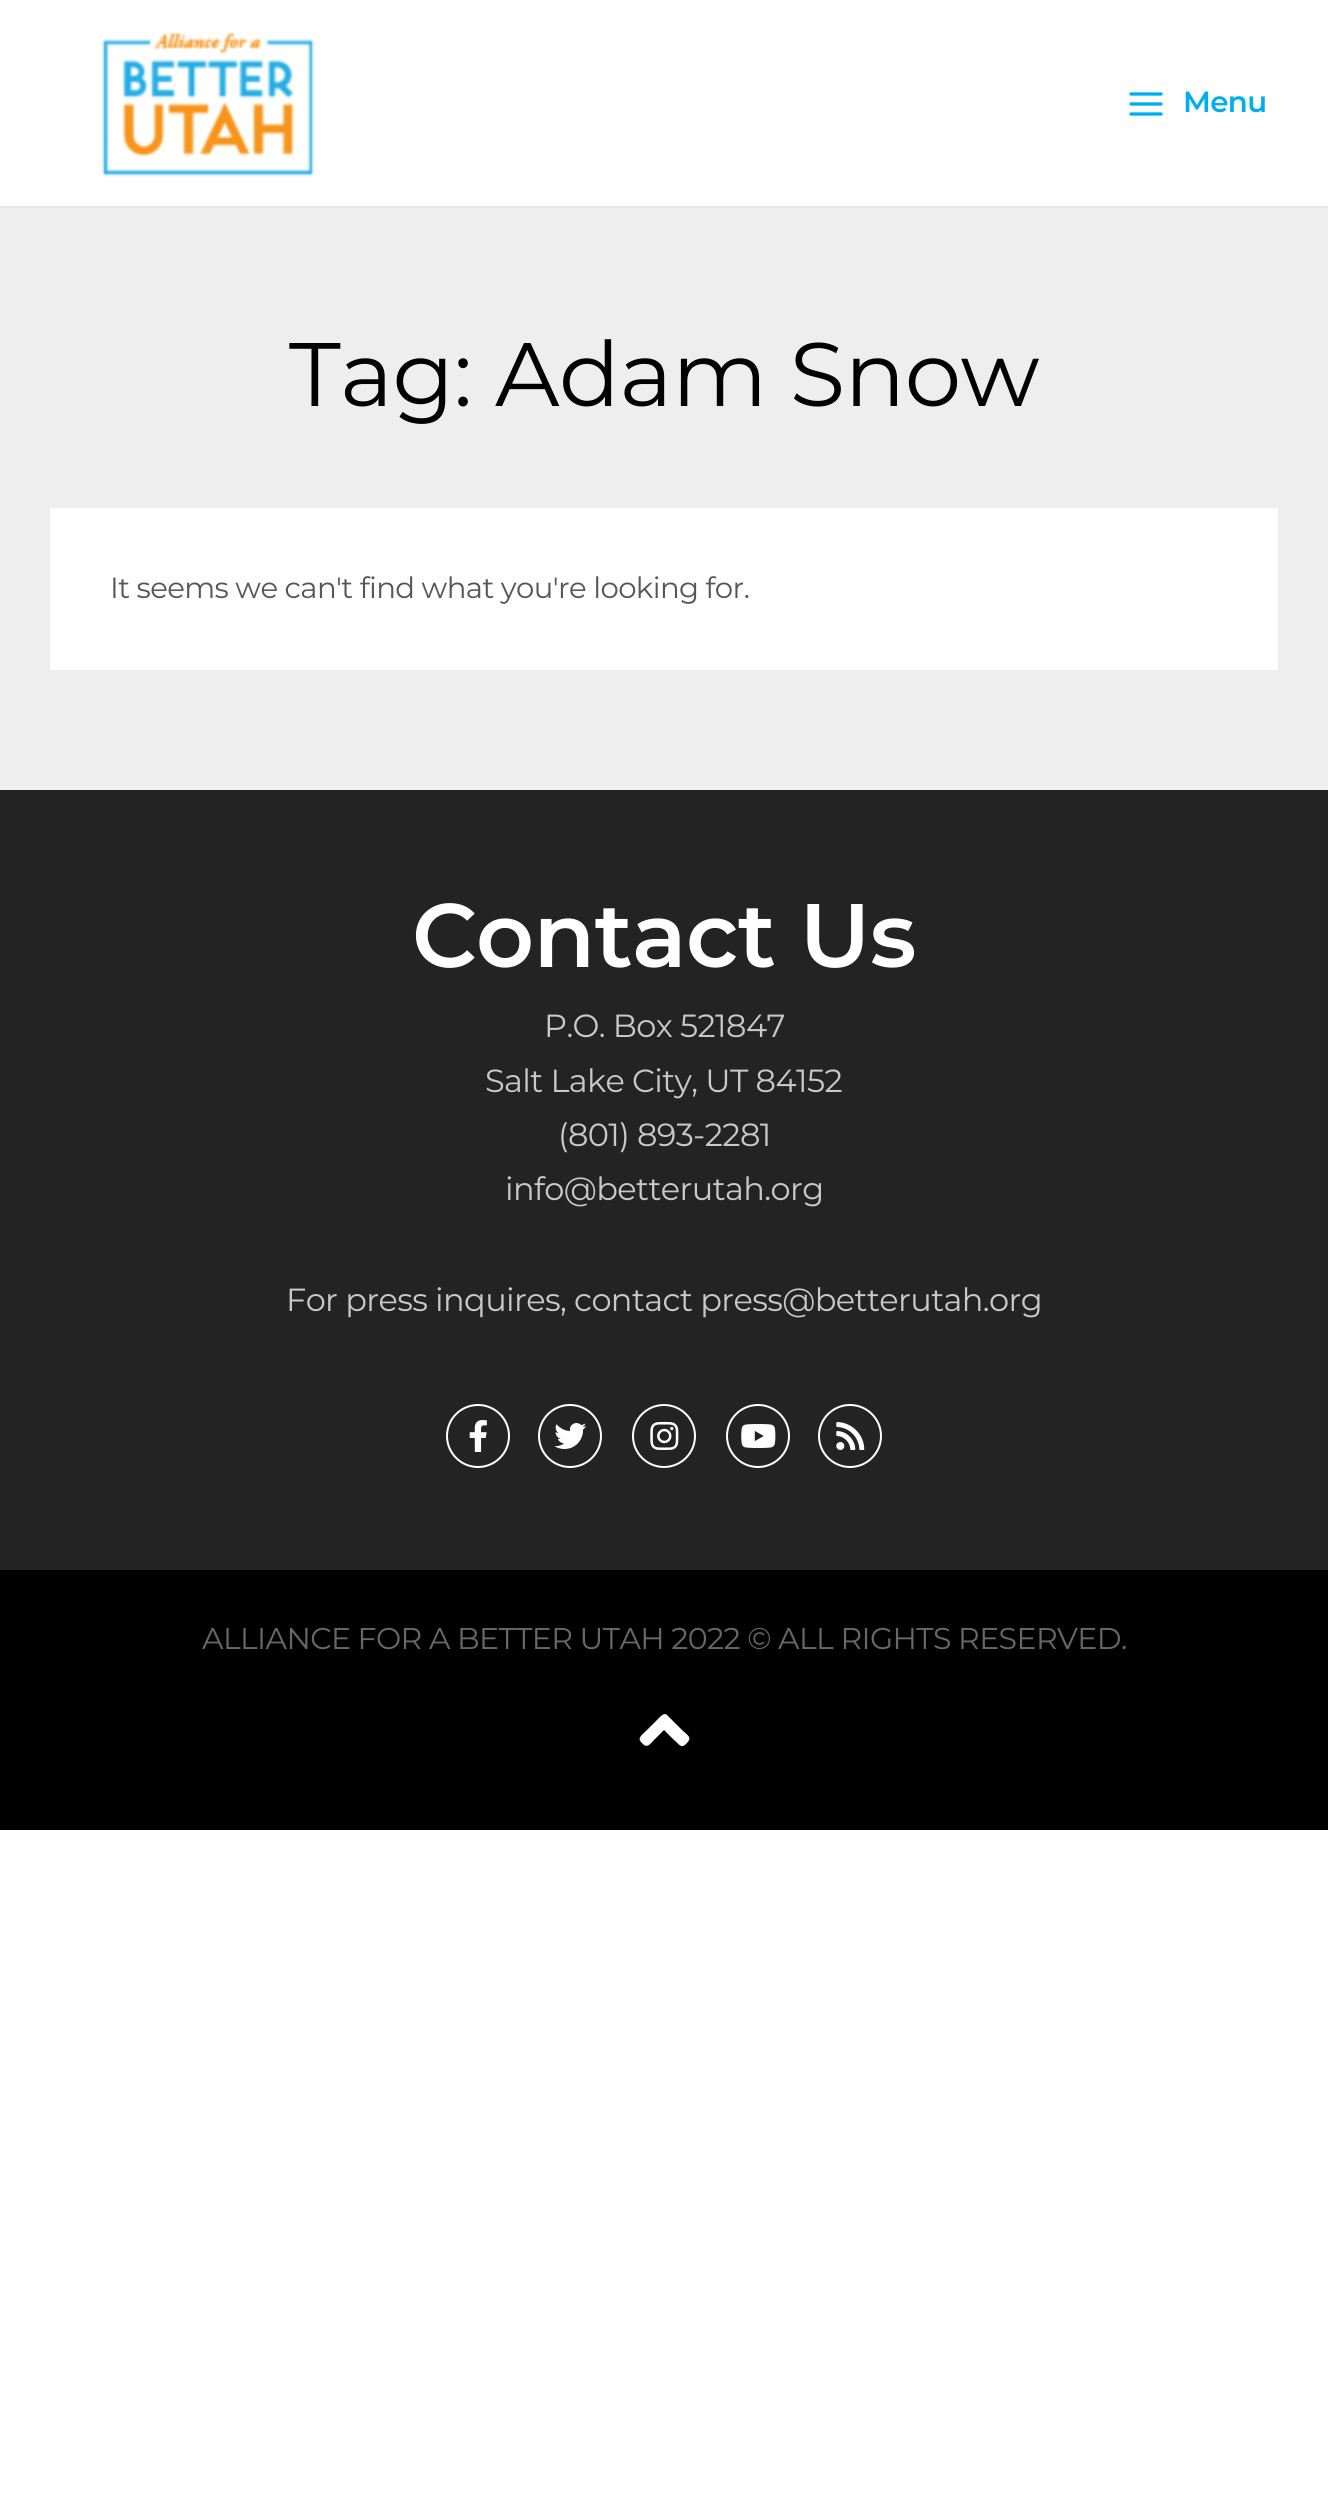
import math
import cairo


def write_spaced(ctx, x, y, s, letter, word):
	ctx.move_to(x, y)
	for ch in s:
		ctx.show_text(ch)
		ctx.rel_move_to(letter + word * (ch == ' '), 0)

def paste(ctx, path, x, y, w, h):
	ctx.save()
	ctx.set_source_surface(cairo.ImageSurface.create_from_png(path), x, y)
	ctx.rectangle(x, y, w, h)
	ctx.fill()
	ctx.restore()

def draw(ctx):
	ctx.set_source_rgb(1, 1, 1)
	ctx.paint()
	ctx.set_source_rgb(0.898, 0.898, 0.898)
	ctx.rectangle(0, 206, 1328, 2)
	ctx.fill()
	paste(ctx, 'media/1.png', 101, 31, 214, 146)
	paste(ctx, 'media/2.png', 1129, 92, 34, 24)
	ctx.select_font_face('Montserrat SemiBold')
	ctx.set_font_size(29.2)
	ctx.set_source_rgb(0, 0.678, 0.933)
	write_spaced(ctx, 1183, 112, 'Menu', -0.6, 0)
	ctx.set_source_rgb(0.933, 0.933, 0.933)
	ctx.rectangle(0, 208, 1328, 582)
	ctx.fill()
	ctx.select_font_face('Montserrat')
	ctx.set_font_size(90)
	ctx.set_source_rgb(0, 0, 0)
	write_spaced(ctx, 289, 406, 'Tag: Adam Snow', -0.6, 0)
	ctx.set_source_rgb(1, 1, 1)
	ctx.rectangle(50, 508, 1228, 162)
	ctx.fill()
	ctx.set_font_size(29.2)
	ctx.set_source_rgb(0.337, 0.337, 0.337)
	write_spaced(ctx, 110, 598, 'It seems we can\'t find what you\'re looking for.', -0.6, 0)
	ctx.set_source_rgb(0.137, 0.137, 0.137)
	ctx.rectangle(0, 790, 1328, 780)
	ctx.fill()
	ctx.select_font_face('Montserrat SemiBold')
	ctx.set_font_size(90)
	ctx.set_source_rgb(1, 1, 1)
	write_spaced(ctx, 412, 967, 'Contact Us', -0.6, 0)
	ctx.select_font_face('Montserrat')
	ctx.set_font_size(32)
	ctx.set_source_rgb(0.788, 0.788, 0.788)
	for x, y, s in [
		(544, 1037, 'P.O. Box 521847'),
		(485, 1092, 'Salt Lake City, UT 84152'),
		(558, 1146, '(801) 893-2281'),
		(505, 1200, 'info@betterutah.org'),
		(286, 1311, 'For press inquires, contact press@betterutah.org'),
	]:
		write_spaced(ctx, x, y, s, -0.6, 0)
	ctx.new_path()
	ctx.arc(478, 1436, 31, 0, 2 * math.pi)
	ctx.set_source_rgb(1, 1, 1)
	ctx.stroke()
	paste(ctx, 'media/3.png', 469, 1420, 18, 32)
	ctx.arc(570, 1436, 31, 0, 2 * math.pi)
	ctx.stroke()
	paste(ctx, 'media/4.png', 554, 1423, 33, 26)
	ctx.arc(664, 1436, 31, 0, 2 * math.pi)
	ctx.stroke()
	paste(ctx, 'media/5.png', 650, 1421, 29, 29)
	ctx.arc(758, 1436, 31, 0, 2 * math.pi)
	ctx.stroke()
	paste(ctx, 'media/6.png', 741, 1424, 35, 24)
	ctx.arc(850, 1436, 31, 0, 2 * math.pi)
	ctx.stroke()
	paste(ctx, 'media/7.png', 836, 1422, 29, 28)
	ctx.set_source_rgb(0, 0, 0)
	ctx.rectangle(0, 1570, 1328, 260)
	ctx.fill()
	ctx.set_font_size(30)
	ctx.set_source_rgb(0.408, 0.408, 0.408)
	write_spaced(ctx, 202, 1649, 'ALLIANCE FOR A BETTER UTAH 2022 © ALL RIGHTS RESERVED.', -0.6, 0)
	ctx.set_source_rgb(1, 1, 1)
	ctx.new_path()
	ctx.move_to(667, 1715)
	ctx.line_to(681, 1729)
	ctx.curve_to(688, 1736, 693, 1737, 686, 1744)
	ctx.curve_to(681, 1749, 679, 1744, 674, 1740)
	ctx.line_to(664, 1730)
	ctx.line_to(654, 1740)
	ctx.curve_to(652, 1742, 648, 1748, 644, 1745)
	ctx.curve_to(636, 1738, 640, 1737, 648, 1729)
	ctx.line_to(658, 1719)
	ctx.curve_to(660, 1717, 664, 1712, 667, 1715)
	ctx.close_path()
	ctx.fill()


surface = cairo.ImageSurface(cairo.FORMAT_RGB24, 1328, 2506)
ctx = cairo.Context(surface)
options = cairo.FontOptions()
options.set_hint_metrics(cairo.HINT_METRICS_OFF)
options.set_hint_style(cairo.HINT_STYLE_NONE)
ctx.set_font_options(options)
ctx.set_miter_limit(4)
draw(ctx)
surface.write_to_png('image.png')
